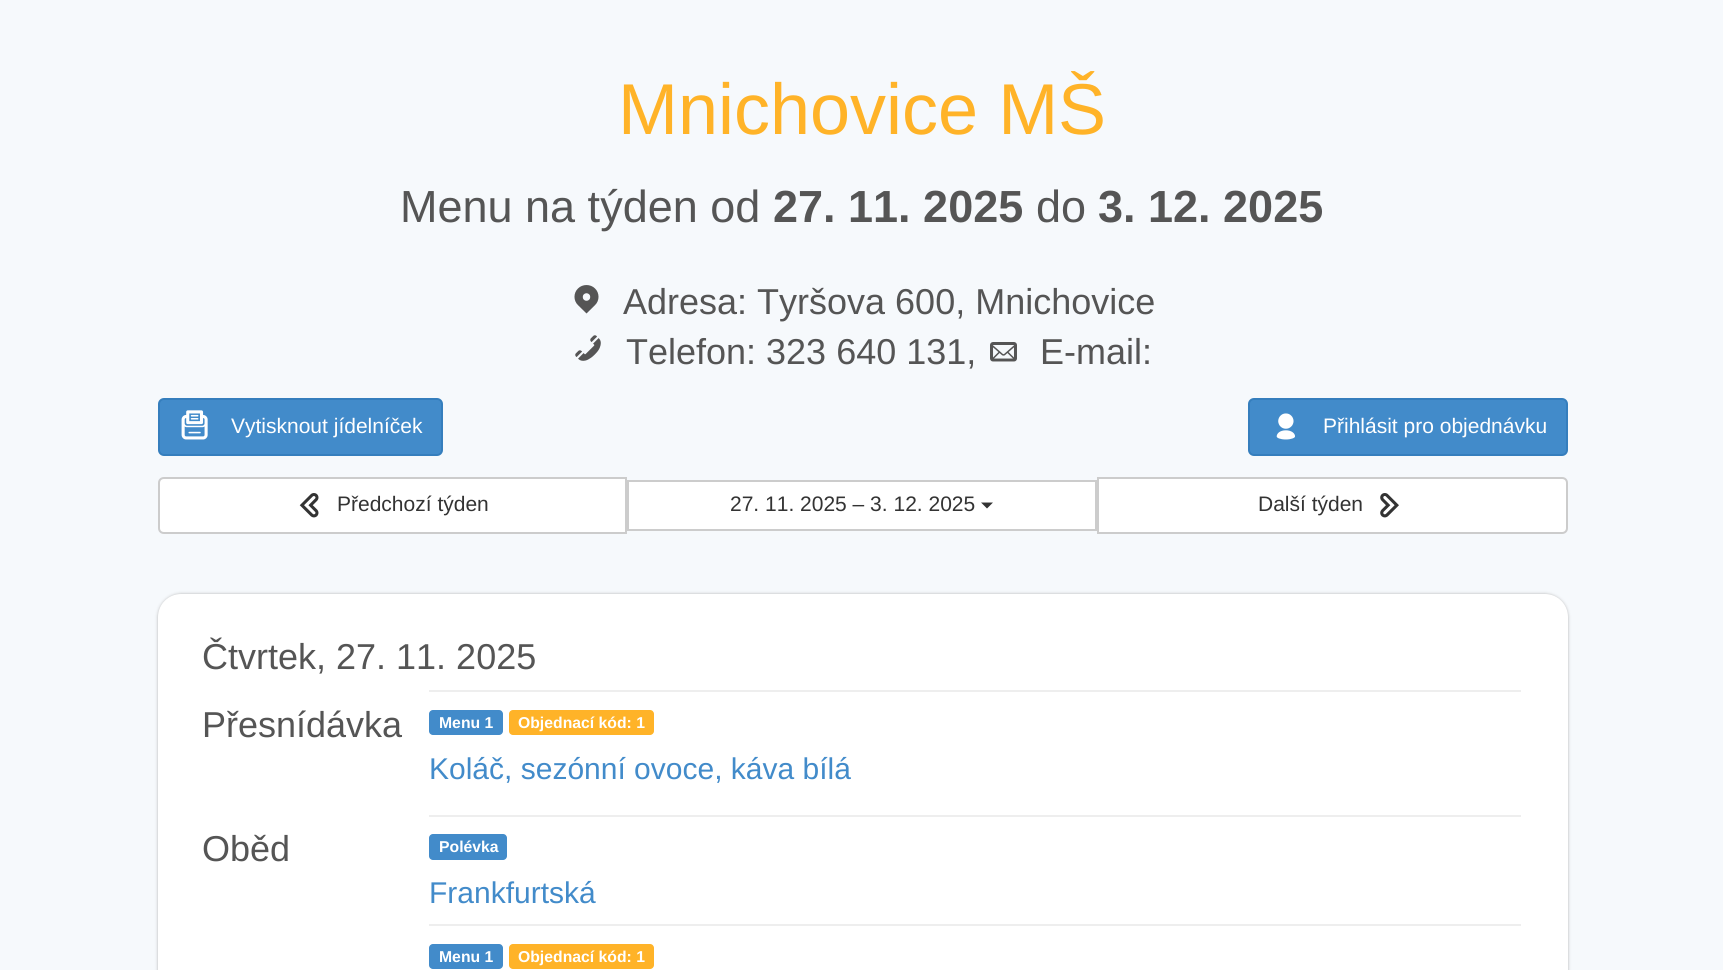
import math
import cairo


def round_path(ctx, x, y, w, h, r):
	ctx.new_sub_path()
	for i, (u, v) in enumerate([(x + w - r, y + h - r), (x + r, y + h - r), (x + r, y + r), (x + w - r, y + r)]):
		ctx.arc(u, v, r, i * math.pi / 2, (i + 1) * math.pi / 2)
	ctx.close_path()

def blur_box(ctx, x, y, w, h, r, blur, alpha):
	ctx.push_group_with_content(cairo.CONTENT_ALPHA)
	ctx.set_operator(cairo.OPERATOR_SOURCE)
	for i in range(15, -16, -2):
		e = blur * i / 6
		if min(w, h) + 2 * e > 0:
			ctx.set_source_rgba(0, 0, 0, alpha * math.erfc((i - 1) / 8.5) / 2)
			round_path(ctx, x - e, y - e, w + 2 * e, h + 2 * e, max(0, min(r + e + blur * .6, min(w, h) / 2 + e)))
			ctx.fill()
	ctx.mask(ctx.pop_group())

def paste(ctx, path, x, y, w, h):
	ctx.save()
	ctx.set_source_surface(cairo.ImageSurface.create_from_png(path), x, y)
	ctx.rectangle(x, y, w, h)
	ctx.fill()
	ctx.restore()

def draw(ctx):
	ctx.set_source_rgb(0.961, 0.976, 0.988)
	ctx.paint()
	ctx.select_font_face('Liberation Sans')
	ctx.set_font_size(72)
	ctx.set_source_rgb(1, 0.702, 0.157)
	ctx.move_to(618, 134)
	ctx.show_text('Mnichovice MŠ')
	ctx.set_font_size(45)
	ctx.set_source_rgb(0.333, 0.333, 0.333)
	ctx.move_to(400, 222)
	ctx.show_text('Menu na týden od')
	ctx.select_font_face('Liberation Sans', cairo.FONT_SLANT_NORMAL, cairo.FONT_WEIGHT_BOLD)
	ctx.move_to(773, 222)
	ctx.show_text('27. 11. 2025')
	ctx.select_font_face('Liberation Sans')
	ctx.move_to(1036, 222)
	ctx.show_text('do')
	ctx.select_font_face('Liberation Sans', cairo.FONT_SLANT_NORMAL, cairo.FONT_WEIGHT_BOLD)
	ctx.move_to(1098, 222)
	ctx.show_text('3. 12. 2025')
	paste(ctx, 'media/1.png', 574, 285, 25, 29)
	ctx.select_font_face('Liberation Sans')
	ctx.set_font_size(36)
	ctx.move_to(623, 314)
	ctx.show_text('Adresa: Tyršova 600, Mnichovice')
	paste(ctx, 'media/2.png', 575, 335, 26, 26)
	ctx.move_to(626, 364)
	ctx.show_text('Telefon: 323 640 131,')
	paste(ctx, 'media/3.png', 990, 342, 27, 20)
	ctx.move_to(1040, 364)
	ctx.show_text('E-mail:')
	ctx.set_source_rgb(0.259, 0.545, 0.792)
	round_path(ctx, 159, 399, 283, 56, 5)
	ctx.fill_preserve()
	ctx.set_source_rgb(0.208, 0.494, 0.741)
	ctx.stroke()
	paste(ctx, 'media/4.png', 181, 410, 27, 30)
	ctx.set_font_size(21)
	ctx.set_source_rgb(1, 1, 1)
	ctx.move_to(231, 433)
	ctx.show_text('Vytisknout jídelníček')
	ctx.set_source_rgb(0.259, 0.545, 0.792)
	round_path(ctx, 1249, 399, 318, 56, 5)
	ctx.fill_preserve()
	ctx.set_source_rgb(0.208, 0.494, 0.741)
	ctx.stroke()
	paste(ctx, 'media/5.png', 1276, 413, 19, 27)
	ctx.set_source_rgb(1, 1, 1)
	ctx.move_to(1323, 433)
	ctx.show_text('Přihlásit pro objednávku')
	ctx.new_path()
	ctx.move_to(164, 478)
	ctx.line_to(626, 478)
	ctx.line_to(626, 533)
	ctx.line_to(164, 533)
	ctx.curve_to(161, 533, 159, 531, 159, 528)
	ctx.line_to(159, 483)
	ctx.curve_to(159, 480, 161, 478, 164, 478)
	ctx.close_path()
	ctx.fill_preserve()
	ctx.set_source_rgb(0.8, 0.8, 0.8)
	ctx.stroke()
	paste(ctx, 'media/6.png', 299, 493, 20, 25)
	ctx.set_source_rgb(0.2, 0.2, 0.2)
	ctx.move_to(337, 511)
	ctx.show_text('Předchozí týden')
	ctx.set_source_rgb(1, 1, 1)
	ctx.rectangle(628, 481, 468, 49)
	ctx.fill_preserve()
	ctx.set_source_rgb(0.8, 0.8, 0.8)
	ctx.stroke()
	ctx.set_source_rgb(0.2, 0.2, 0.2)
	ctx.move_to(730, 511)
	ctx.show_text('27. 11. 2025 – 3. 12. 2025')
	ctx.new_path()
	ctx.move_to(981, 502.5)
	ctx.line_to(993, 502.5)
	ctx.line_to(987, 508.5)
	ctx.close_path()
	ctx.fill()
	ctx.set_source_rgb(1, 1, 1)
	ctx.new_path()
	ctx.move_to(1098, 478)
	ctx.line_to(1562, 478)
	ctx.curve_to(1565, 478, 1567, 480, 1567, 483)
	ctx.line_to(1567, 528)
	ctx.curve_to(1567, 531, 1565, 533, 1562, 533)
	ctx.line_to(1098, 533)
	ctx.close_path()
	ctx.fill_preserve()
	ctx.set_source_rgb(0.8, 0.8, 0.8)
	ctx.stroke()
	ctx.set_source_rgb(0.2, 0.2, 0.2)
	ctx.move_to(1258, 511)
	ctx.show_text('Další týden')
	paste(ctx, 'media/7.png', 1380, 493, 19, 25)
	ctx.set_source_rgb(0.702, 0.702, 0.702)
	blur_box(ctx, 158, 594, 1410, 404, 23, 1.5, 1)
	ctx.set_source_rgb(1, 1, 1)
	round_path(ctx, 158, 594, 1410, 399, 23)
	ctx.fill()
	ctx.set_font_size(36)
	ctx.set_source_rgb(0.333, 0.333, 0.333)
	ctx.move_to(202, 669)
	ctx.show_text('Čtvrtek, 27. 11. 2025')
	ctx.move_to(202, 737)
	ctx.show_text('Přesnídávka')
	ctx.set_source_rgb(0.933, 0.933, 0.933)
	ctx.rectangle(429, 690, 1092, 2)
	ctx.fill()
	ctx.set_source_rgb(0.259, 0.545, 0.792)
	round_path(ctx, 429, 710, 74, 25, 4)
	ctx.fill()
	ctx.select_font_face('Liberation Sans', cairo.FONT_SLANT_NORMAL, cairo.FONT_WEIGHT_BOLD)
	ctx.set_font_size(15.75)
	ctx.set_source_rgb(1, 1, 1)
	ctx.move_to(439, 728)
	ctx.show_text('Menu 1')
	ctx.set_source_rgb(1, 0.702, 0.157)
	round_path(ctx, 509, 710, 145, 25, 4)
	ctx.fill()
	ctx.set_source_rgb(1, 1, 1)
	ctx.move_to(518, 728)
	ctx.show_text('Objednací kód: 1')
	ctx.select_font_face('Liberation Sans')
	ctx.set_font_size(30)
	ctx.set_source_rgb(0.259, 0.545, 0.792)
	ctx.move_to(429, 779)
	ctx.show_text('Koláč, sezónní ovoce, káva bílá')
	ctx.set_font_size(36)
	ctx.set_source_rgb(0.333, 0.333, 0.333)
	ctx.move_to(202, 861)
	ctx.show_text('Oběd')
	ctx.set_source_rgb(0.933, 0.933, 0.933)
	ctx.rectangle(429, 815, 1092, 2)
	ctx.fill()
	ctx.set_source_rgb(0.259, 0.545, 0.792)
	round_path(ctx, 429, 834, 78, 26, 4)
	ctx.fill()
	ctx.select_font_face('Liberation Sans', cairo.FONT_SLANT_NORMAL, cairo.FONT_WEIGHT_BOLD)
	ctx.set_font_size(15.75)
	ctx.set_source_rgb(1, 1, 1)
	ctx.move_to(439, 852)
	ctx.show_text('Polévka')
	ctx.select_font_face('Liberation Sans')
	ctx.set_font_size(30)
	ctx.set_source_rgb(0.259, 0.545, 0.792)
	ctx.move_to(429, 903)
	ctx.show_text('Frankfurtská')
	ctx.set_source_rgb(0.933, 0.933, 0.933)
	ctx.rectangle(429, 924, 1092, 2)
	ctx.fill()
	ctx.set_source_rgb(0.259, 0.545, 0.792)
	round_path(ctx, 429, 944, 74, 25, 4)
	ctx.fill()
	ctx.select_font_face('Liberation Sans', cairo.FONT_SLANT_NORMAL, cairo.FONT_WEIGHT_BOLD)
	ctx.set_font_size(15.75)
	ctx.set_source_rgb(1, 1, 1)
	ctx.move_to(439, 962)
	ctx.show_text('Menu 1')
	ctx.set_source_rgb(1, 0.702, 0.157)
	round_path(ctx, 509, 944, 145, 25, 4)
	ctx.fill()
	ctx.set_source_rgb(1, 1, 1)
	ctx.move_to(518, 962)
	ctx.show_text('Objednací kód: 1')


surface = cairo.ImageSurface(cairo.FORMAT_RGB24, 1723, 970)
ctx = cairo.Context(surface)
options = cairo.FontOptions()
options.set_hint_metrics(cairo.HINT_METRICS_OFF)
options.set_hint_style(cairo.HINT_STYLE_NONE)
ctx.set_font_options(options)
ctx.set_miter_limit(4)
draw(ctx)
surface.write_to_png('image.png')
